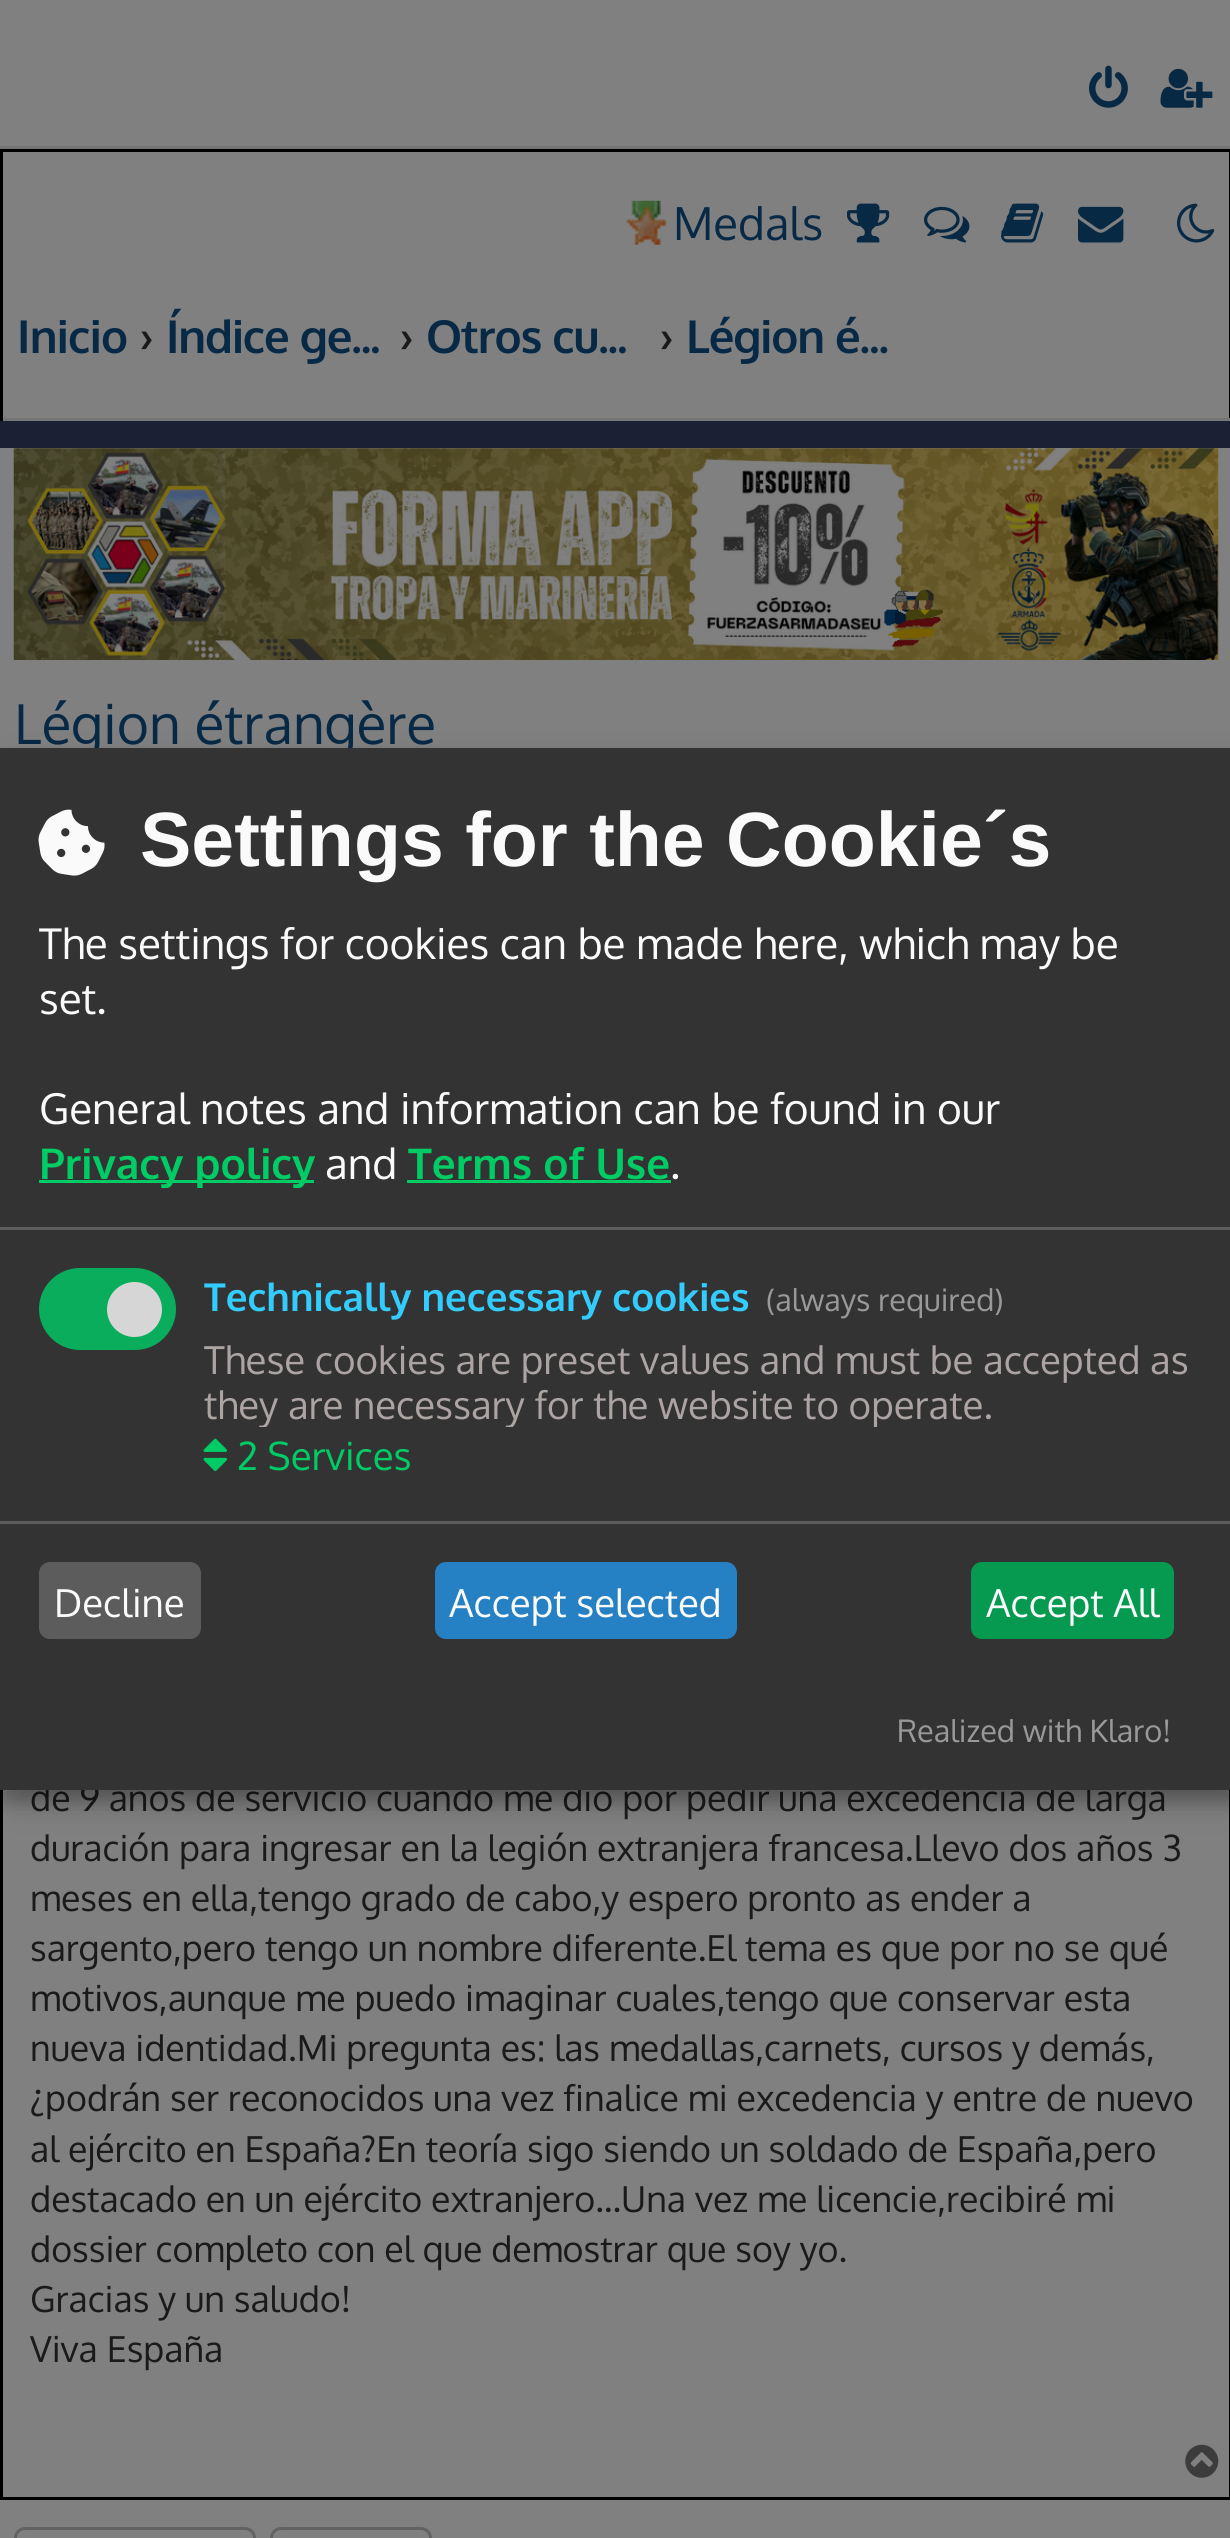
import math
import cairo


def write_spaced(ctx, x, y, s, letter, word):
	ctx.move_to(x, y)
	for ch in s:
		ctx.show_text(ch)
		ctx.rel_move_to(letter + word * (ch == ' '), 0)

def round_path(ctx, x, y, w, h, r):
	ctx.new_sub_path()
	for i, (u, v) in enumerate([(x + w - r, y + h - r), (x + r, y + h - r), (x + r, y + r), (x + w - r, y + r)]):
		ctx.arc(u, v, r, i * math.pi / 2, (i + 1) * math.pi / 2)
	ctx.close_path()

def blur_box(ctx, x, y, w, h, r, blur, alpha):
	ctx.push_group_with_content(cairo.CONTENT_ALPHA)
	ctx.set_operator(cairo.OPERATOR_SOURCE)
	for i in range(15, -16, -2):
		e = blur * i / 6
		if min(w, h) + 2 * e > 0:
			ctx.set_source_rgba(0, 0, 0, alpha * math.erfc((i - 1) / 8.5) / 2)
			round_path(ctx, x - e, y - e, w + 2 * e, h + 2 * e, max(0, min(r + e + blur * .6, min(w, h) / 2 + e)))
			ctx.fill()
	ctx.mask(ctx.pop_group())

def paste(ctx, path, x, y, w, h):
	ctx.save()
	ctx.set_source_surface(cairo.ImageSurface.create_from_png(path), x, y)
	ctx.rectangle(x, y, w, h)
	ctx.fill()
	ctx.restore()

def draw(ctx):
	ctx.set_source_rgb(0.106, 0.125, 0.208)
	ctx.paint()
	ctx.set_source_rgb(0.502, 0.502, 0.502)
	ctx.rectangle(0, 0, 1230, 146)
	ctx.fill()
	ctx.set_source_rgb(0.451, 0.459, 0.467)
	ctx.rectangle(0, 146, 1230, 3)
	ctx.fill()
	paste(ctx, 'media/1.png', 1089, 65, 39, 43)
	paste(ctx, 'media/2.png', 1160, 68, 53, 40)
	ctx.set_source_rgb(0.502, 0.502, 0.502)
	ctx.rectangle(3, 152, 1226, 266)
	ctx.fill()
	ctx.set_source_rgb(0, 0, 0)
	ctx.rectangle(0, 149, 1230, 3)
	ctx.rectangle(1229, 149, 1, 272)
	ctx.fill()
	ctx.set_source_rgb(0.451, 0.459, 0.467)
	ctx.rectangle(0, 418, 1230, 3)
	ctx.fill()
	ctx.set_source_rgb(0, 0, 0)
	ctx.rectangle(0, 149, 3, 272)
	ctx.fill()
	paste(ctx, 'media/3.png', 626, 200, 41, 45)
	ctx.select_font_face('Oxygen')
	ctx.set_font_size(45.5)
	ctx.set_source_rgb(0.031, 0.161, 0.271)
	ctx.move_to(673, 240)
	ctx.show_text('Medals')
	paste(ctx, 'media/4.png', 847, 203, 43, 40)
	paste(ctx, 'media/5.png', 924, 206, 46, 37)
	paste(ctx, 'media/6.png', 1001, 203, 43, 40)
	paste(ctx, 'media/7.png', 1078, 206, 46, 37)
	paste(ctx, 'media/8.png', 1177, 203, 38, 40)
	ctx.select_font_face('Oxygen', cairo.FONT_SLANT_NORMAL, cairo.FONT_WEIGHT_BOLD)
	write_spaced(ctx, 17, 353, 'Inicio', -0.75, 0)
	ctx.set_source_rgb(0.102, 0.102, 0.102)
	ctx.move_to(140, 353)
	ctx.show_text('›')
	ctx.set_source_rgb(0.031, 0.161, 0.271)
	write_spaced(ctx, 166, 353, 'Índice ge...', -1.1, 0)
	ctx.set_source_rgb(0.102, 0.102, 0.102)
	ctx.move_to(400, 353)
	ctx.show_text('›')
	ctx.set_source_rgb(0.031, 0.161, 0.271)
	write_spaced(ctx, 426, 353, 'Otros cu...', -1.1, 0)
	ctx.set_source_rgb(0.102, 0.102, 0.102)
	ctx.move_to(660, 353)
	ctx.show_text('›')
	ctx.set_source_rgb(0.031, 0.161, 0.271)
	write_spaced(ctx, 686, 353, 'Légion é...', -1.1, 0)
	ctx.set_source_rgb(0.502, 0.502, 0.502)
	ctx.rectangle(0, 448, 1230, 2090)
	ctx.fill()
	paste(ctx, 'media/9.png', 13, 448, 1206, 212)
	ctx.select_font_face('Oxygen')
	ctx.set_font_size(55)
	ctx.set_source_rgb(0.031, 0.161, 0.271)
	ctx.move_to(14, 744)
	ctx.show_text('Légion étrangère')
	ctx.rectangle(1.5, 911.5, 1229, 1587)
	ctx.set_source_rgb(0, 0, 0)
	ctx.set_line_width(3)
	ctx.stroke()
	ctx.set_font_size(35.75)
	ctx.set_source_rgb(0.102, 0.102, 0.102)
	for x, y, s in [
		(30, 1811, 'de 9 años de servicio cuando me dio por pedir una excedencia de larga'),
		(30, 1861, 'duración para ingresar en la legión extranjera francesa.Llevo dos años 3'),
		(30, 1911, 'meses en ella,tengo grado de cabo,y espero pronto as ender a'),
		(30, 1961, 'sargento,pero tengo un nombre diferente.El tema es que por no se qué'),
		(30, 2011, 'motivos,aunque me puedo imaginar cuales,tengo que conservar esta'),
		(30, 2061, 'nueva identidad.Mi pregunta es: las medallas,carnets, cursos y demás,'),
		(30, 2111, '¿podrán ser reconocidos una vez finalice mi excedencia y entre de nuevo'),
		(30, 2162, 'al ejército en España?En teoría sigo siendo un soldado de España,pero'),
		(30, 2212, 'destacado en un ejército extranjero...Una vez me licencie,recibiré mi'),
		(30, 2262, 'dossier completo con el que demostrar que soy yo.'),
		(30, 2312, 'Gracias y un saludo!'),
		(30, 2362, 'Viva España'),
	]:
		ctx.move_to(x, y)
		ctx.show_text(s)
	paste(ctx, 'media/10.png', 1185, 2444, 34, 34)
	round_path(ctx, 15.5, 2528.5, 239, 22, 9.5)
	ctx.set_source_rgb(0.392, 0.384, 0.376)
	ctx.stroke()
	round_path(ctx, 271.5, 2528.5, 159, 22, 9.5)
	ctx.stroke()
	ctx.set_source_rgb(0, 0, 0)
	blur_box(ctx, 14, 762, 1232, 1042, 0, 14, 0.19)
	blur_box(ctx, 0, 759, 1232, 1042, 0, 8, 0.2)
	ctx.set_source_rgb(0.2, 0.2, 0.2)
	ctx.rectangle(0, 748, 1230, 1042)
	ctx.fill()
	ctx.set_source_rgb(0.361, 0.361, 0.361)
	ctx.rectangle(0, 1227, 1230, 3)
	ctx.fill()
	paste(ctx, 'media/11.png', 38, 809, 67, 67)
	ctx.select_font_face('Liberation Sans', cairo.FONT_SLANT_NORMAL, cairo.FONT_WEIGHT_BOLD)
	ctx.set_font_size(77)
	ctx.set_source_rgb(0.98, 0.98, 0.98)
	ctx.move_to(140, 866)
	ctx.show_text('Settings for the Cookie´s')
	ctx.save()
	ctx.rectangle(39, 913, 1127, 275)
	ctx.clip()
	ctx.select_font_face('Oxygen')
	ctx.set_font_size(42.35)
	ctx.move_to(39, 959)
	ctx.show_text('The settings for cookies can be made here, which may be')
	ctx.restore()
	ctx.select_font_face('Oxygen')
	ctx.set_font_size(42.35)
	ctx.move_to(39, 1014)
	ctx.show_text('set.')
	ctx.move_to(39, 1124)
	ctx.show_text('General notes and information can be found in our')
	ctx.set_source_rgb(0, 0.8, 0.4)
	ctx.rectangle(39, 1180, 275, 3)
	ctx.fill()
	ctx.save()
	ctx.rectangle(39, 913, 1127, 275)
	ctx.clip()
	ctx.select_font_face('Oxygen', cairo.FONT_SLANT_NORMAL, cairo.FONT_WEIGHT_BOLD)
	ctx.move_to(39, 1179)
	ctx.show_text('Privacy policy')
	ctx.restore()
	ctx.set_source_rgb(0.98, 0.98, 0.98)
	ctx.move_to(325, 1179)
	ctx.show_text('and')
	ctx.select_font_face('Oxygen', cairo.FONT_SLANT_NORMAL, cairo.FONT_WEIGHT_BOLD)
	ctx.set_source_rgb(0, 0.8, 0.4)
	ctx.move_to(408, 1179)
	ctx.show_text('Terms of Use')
	ctx.rectangle(407, 1180, 264, 3)
	ctx.fill()
	ctx.select_font_face('Oxygen')
	ctx.set_source_rgb(0.98, 0.98, 0.98)
	ctx.move_to(670, 1179)
	ctx.show_text('.')
	ctx.set_source_rgb(0.039, 0.678, 0.361)
	round_path(ctx, 39, 1268, 137, 82, 41)
	ctx.fill()
	ctx.set_source_rgb(0.839, 0.839, 0.839)
	ctx.arc(134.5, 1309.5, 27.5, 0, 2 * math.pi)
	ctx.fill()
	ctx.select_font_face('Oxygen', cairo.FONT_SLANT_NORMAL, cairo.FONT_WEIGHT_BOLD)
	ctx.set_font_size(38.5)
	ctx.set_source_rgb(0.2, 0.8, 1)
	ctx.move_to(204, 1311)
	ctx.show_text('Technically necessary cookies')
	ctx.select_font_face('Oxygen')
	ctx.set_font_size(30.75)
	ctx.set_source_rgb(0.6, 0.6, 0.6)
	ctx.move_to(766, 1311)
	ctx.show_text('(always required)')
	ctx.save()
	ctx.rectangle(204, 1326, 990, 101)
	ctx.clip()
	ctx.set_font_size(38.5)
	ctx.set_source_rgb(0.675, 0.639, 0.639)
	ctx.move_to(204, 1374)
	ctx.show_text('These cookies are preset values and must be accepted as')
	ctx.move_to(204, 1419)
	ctx.show_text('they are necessary for the website to operate.')
	ctx.restore()
	paste(ctx, 'media/12.png', 203, 1438, 24, 34)
	ctx.set_font_size(38.5)
	ctx.set_source_rgb(0, 0.8, 0.4)
	ctx.move_to(237, 1470)
	ctx.show_text('2 Services')
	ctx.set_source_rgb(0.361, 0.361, 0.361)
	ctx.rectangle(0, 1521, 1230, 3)
	ctx.fill()
	round_path(ctx, 39, 1562, 162, 77, 11)
	ctx.fill()
	ctx.set_source_rgb(0.98, 0.98, 0.98)
	ctx.move_to(54, 1617)
	ctx.show_text('Decline')
	ctx.set_source_rgb(0.145, 0.506, 0.769)
	round_path(ctx, 435, 1562, 302, 77, 11)
	ctx.fill()
	ctx.set_source_rgb(0.98, 0.98, 0.98)
	ctx.move_to(449, 1617)
	ctx.show_text('Accept selected')
	ctx.set_source_rgb(0.027, 0.604, 0.318)
	round_path(ctx, 971, 1562, 203, 77, 11)
	ctx.fill()
	ctx.set_source_rgb(0.98, 0.98, 0.98)
	ctx.move_to(986, 1617)
	ctx.show_text('Accept All')
	ctx.set_font_size(30.75)
	ctx.set_source_rgb(0.6, 0.6, 0.6)
	ctx.move_to(897, 1742)
	ctx.show_text('Realized with Klaro!')


surface = cairo.ImageSurface(cairo.FORMAT_RGB24, 1230, 2538)
ctx = cairo.Context(surface)
options = cairo.FontOptions()
options.set_hint_metrics(cairo.HINT_METRICS_OFF)
options.set_hint_style(cairo.HINT_STYLE_NONE)
ctx.set_font_options(options)
ctx.set_miter_limit(4)
draw(ctx)
surface.write_to_png('image.png')
